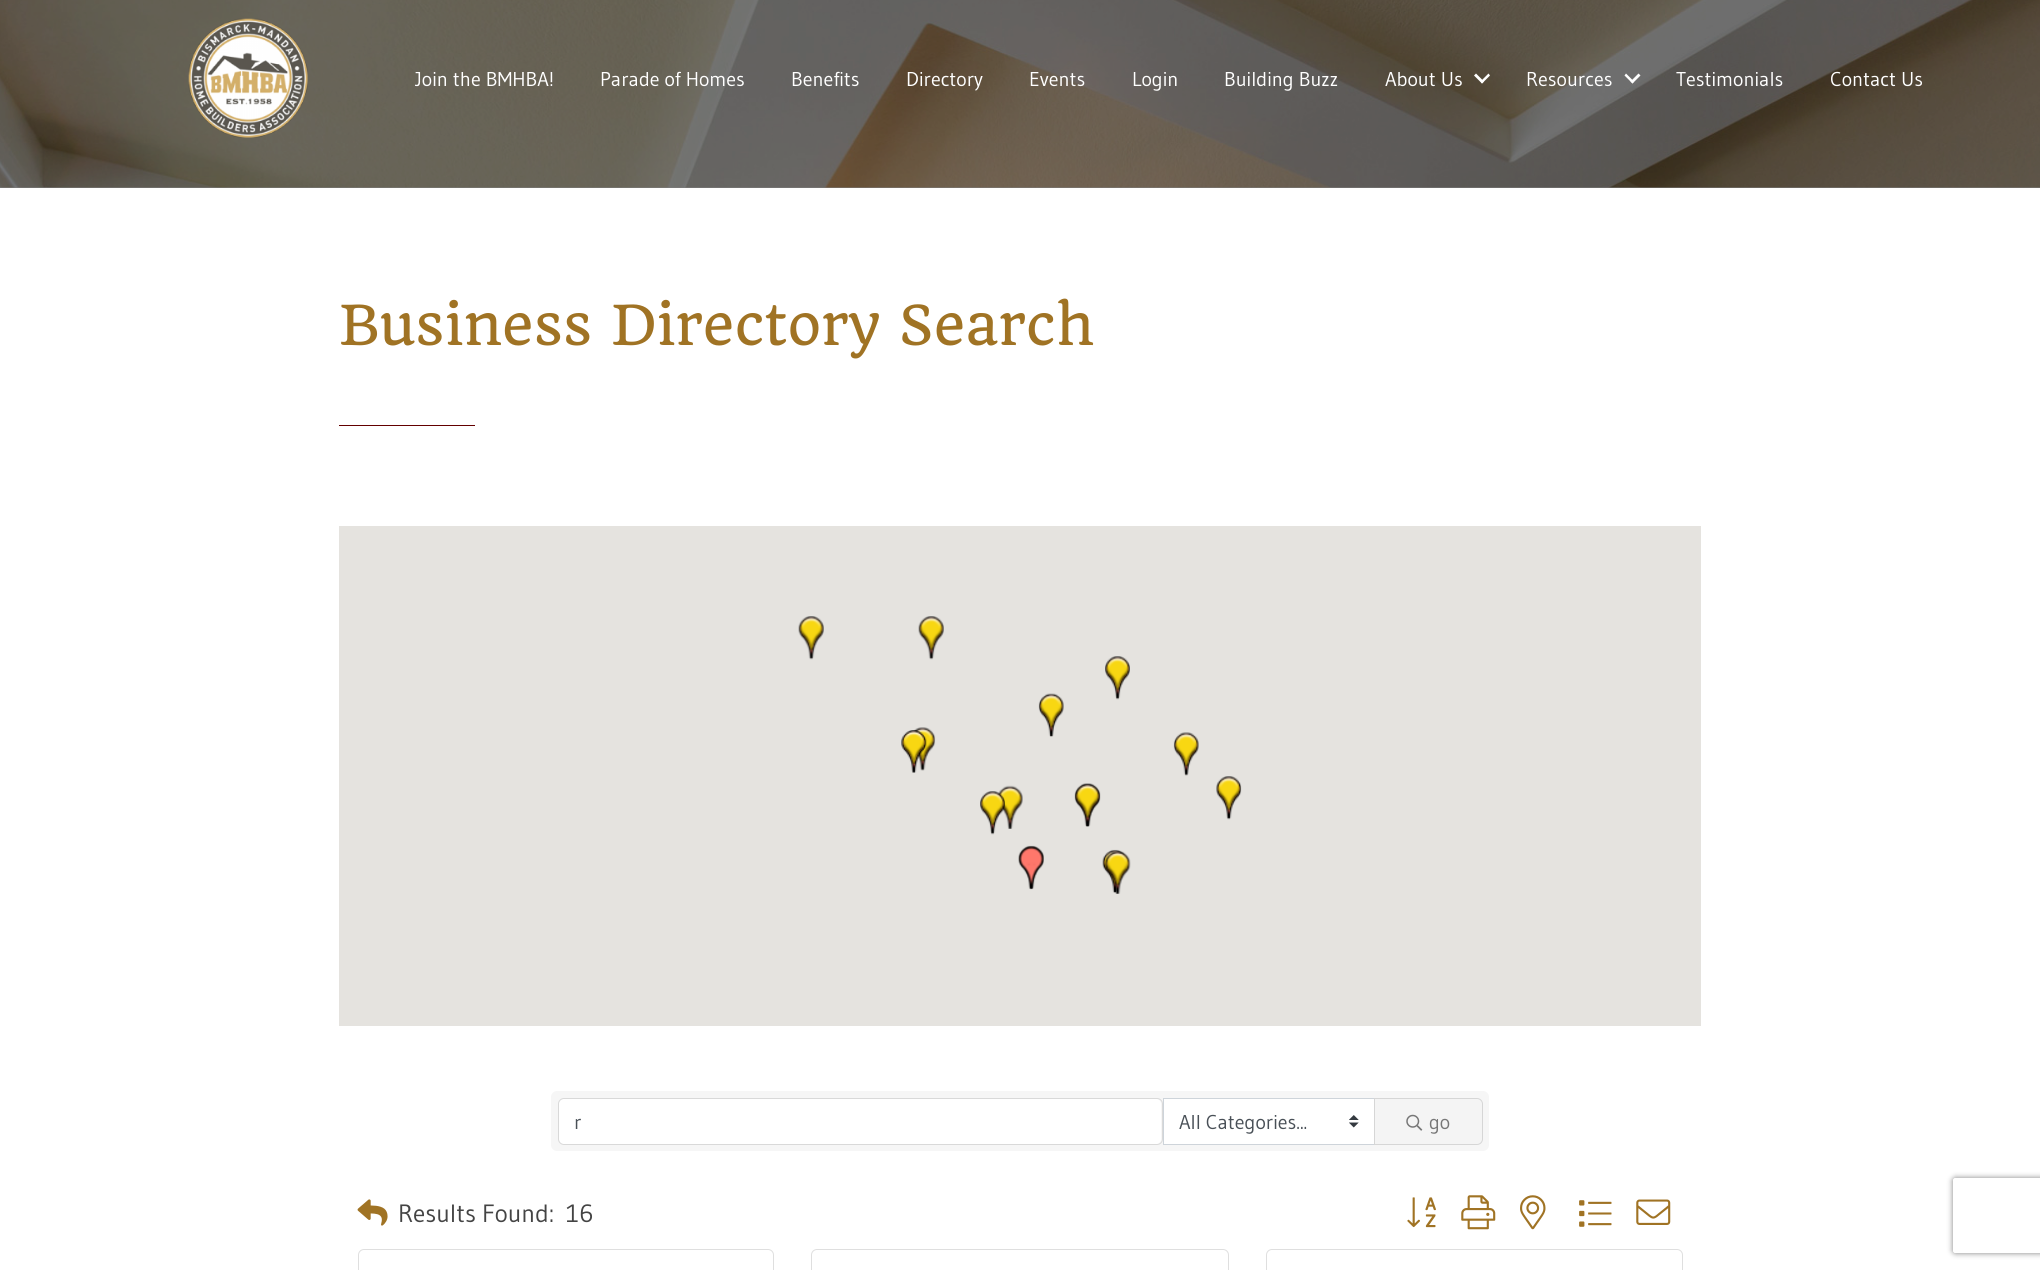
import math
import cairo


def round_path(ctx, x, y, w, h, r):
	ctx.new_sub_path()
	for i, (u, v) in enumerate([(x + w - r, y + h - r), (x + r, y + h - r), (x + r, y + r), (x + w - r, y + r)]):
		ctx.arc(u, v, r, i * math.pi / 2, (i + 1) * math.pi / 2)
	ctx.close_path()

def blur_box(ctx, x, y, w, h, r, blur, alpha):
	ctx.push_group_with_content(cairo.CONTENT_ALPHA)
	ctx.set_operator(cairo.OPERATOR_SOURCE)
	for i in range(15, -16, -2):
		e = blur * i / 6
		if min(w, h) + 2 * e > 0:
			ctx.set_source_rgba(0, 0, 0, alpha * math.erfc((i - 1) / 8.5) / 2)
			round_path(ctx, x - e, y - e, w + 2 * e, h + 2 * e, max(0, min(r + e + blur * .6, min(w, h) / 2 + e)))
			ctx.fill()
	ctx.mask(ctx.pop_group())

def paste(ctx, path, x, y, w, h):
	ctx.save()
	ctx.set_source_surface(cairo.ImageSurface.create_from_png(path), x, y)
	ctx.rectangle(x, y, w, h)
	ctx.fill()
	ctx.restore()

def draw(ctx):
	ctx.set_source_rgb(1, 1, 1)
	ctx.paint()
	ctx.set_source_rgb(0.502, 0.502, 0.502)
	ctx.rectangle(0, 187, 2040, 1)
	ctx.fill()
	paste(ctx, 'media/2.png', 0, 0, 2040, 188)
	paste(ctx, 'media/1.png', 188, 18, 120, 120)
	ctx.select_font_face('Gudea')
	ctx.set_font_size(20)
	ctx.set_source_rgb(1, 1, 1)
	for x, y, s in [
		(415, 86, 'Join the BMHBA!'),
		(600, 86, 'Parade of Homes'),
		(791, 86, 'Benefits'),
		(906, 86, 'Directory'),
		(1029, 86, 'Events'),
		(1132, 86, 'Login'),
		(1224, 86, 'Building Buzz'),
		(1385, 86, 'About Us'),
	]:
		ctx.move_to(x, y)
		ctx.show_text(s)
	ctx.new_path()
	ctx.move_to(1488.5, 73.5)
	ctx.line_to(1490, 75.5)
	ctx.line_to(1482, 83.5)
	ctx.line_to(1480.5, 81.5)
	ctx.close_path()
	ctx.fill()
	ctx.new_path()
	ctx.move_to(1476, 73.5)
	ctx.line_to(1484, 81.5)
	ctx.line_to(1482, 83.5)
	ctx.line_to(1474, 75.5)
	ctx.close_path()
	ctx.fill()
	ctx.move_to(1526, 86)
	ctx.show_text('Resources')
	ctx.new_path()
	ctx.move_to(1638.5, 73.5)
	ctx.line_to(1640.5, 75.5)
	ctx.line_to(1632.5, 83.5)
	ctx.line_to(1630.5, 81.5)
	ctx.close_path()
	ctx.fill()
	ctx.new_path()
	ctx.move_to(1626, 73.5)
	ctx.line_to(1634, 81.5)
	ctx.line_to(1632.5, 83.5)
	ctx.line_to(1624.5, 75.5)
	ctx.close_path()
	ctx.fill()
	ctx.move_to(1676, 86)
	ctx.show_text('Testimonials')
	ctx.move_to(1830, 86)
	ctx.show_text('Contact Us')
	ctx.select_font_face('Quando')
	ctx.set_font_size(53.75)
	ctx.set_source_rgb(0.627, 0.451, 0.141)
	ctx.move_to(339, 345)
	ctx.show_text('Business Directory Search')
	ctx.set_source_rgb(0.388, 0, 0)
	ctx.rectangle(339, 425, 136, 1)
	ctx.fill()
	ctx.set_source_rgb(0.898, 0.89, 0.875)
	ctx.rectangle(339, 526, 1362, 500)
	ctx.fill()
	paste(ctx, 'media/3.png', 798, 616, 26, 44)
	paste(ctx, 'media/4.png', 918, 616, 26, 44)
	paste(ctx, 'media/5.png', 1105, 656, 25, 44)
	paste(ctx, 'media/6.png', 1038, 693, 26, 44)
	paste(ctx, 'media/7.png', 912, 727, 24, 44)
	paste(ctx, 'media/8.png', 901, 730, 26, 43)
	paste(ctx, 'media/9.png', 1173, 732, 26, 44)
	paste(ctx, 'media/14.png', 1075, 783, 25, 44)
	paste(ctx, 'media/10.png', 1074, 783, 27, 44)
	paste(ctx, 'media/11.png', 1216, 776, 26, 44)
	paste(ctx, 'media/13.png', 997, 785, 26, 44)
	paste(ctx, 'media/12.png', 980, 791, 25, 44)
	paste(ctx, 'media/16.png', 1018, 846, 26, 44)
	paste(ctx, 'media/15.png', 1018, 845, 26, 44)
	paste(ctx, 'media/17.png', 1102, 849, 26, 44)
	paste(ctx, 'media/18.png', 1104, 850, 27, 44)
	ctx.set_source_rgb(0.961, 0.961, 0.961)
	round_path(ctx, 551, 1091, 938, 60, 6)
	ctx.fill()
	ctx.set_source_rgb(1, 1, 1)
	round_path(ctx, 559, 1099, 602, 45, 5)
	ctx.fill()
	round_path(ctx, 558.5, 1098.5, 604, 46, 5.5)
	ctx.set_source_rgba(0, 0, 0, 0.12)
	ctx.set_line_width(1)
	ctx.stroke()
	ctx.select_font_face('Gudea')
	ctx.set_font_size(20)
	ctx.set_source_rgb(0.286, 0.314, 0.341)
	ctx.move_to(574, 1129)
	ctx.show_text('r')
	ctx.set_source_rgb(1, 1, 1)
	ctx.rectangle(1164, 1099, 210, 45)
	ctx.fill()
	paste(ctx, 'media/19.png', 1349, 1115, 10, 13)
	ctx.rectangle(1163.5, 1098.5, 211, 46)
	ctx.set_source_rgb(0.808, 0.831, 0.855)
	ctx.stroke()
	ctx.set_source_rgb(0.286, 0.314, 0.341)
	ctx.move_to(1179, 1129)
	ctx.show_text('All Categories...')
	ctx.set_source_rgb(0.957, 0.957, 0.957)
	ctx.new_path()
	ctx.move_to(1374.5, 1098.5)
	ctx.line_to(1477, 1098.5)
	ctx.curve_to(1480, 1098.5, 1482.5, 1101, 1482.5, 1104)
	ctx.line_to(1482.5, 1139)
	ctx.curve_to(1482.5, 1142, 1480, 1144.5, 1477, 1144.5)
	ctx.line_to(1374.5, 1144.5)
	ctx.close_path()
	ctx.fill_preserve()
	ctx.set_source_rgb(0.839, 0.839, 0.839)
	ctx.stroke()
	paste(ctx, 'media/20.png', 1406, 1114, 17, 17)
	ctx.set_source_rgb(0.467, 0.467, 0.467)
	ctx.move_to(1429, 1129)
	ctx.show_text('go')
	paste(ctx, 'media/21.png', 357, 1199, 31, 27)
	ctx.set_font_size(25)
	ctx.set_source_rgb(0.267, 0.267, 0.267)
	ctx.move_to(398, 1222)
	ctx.show_text('Results Found:')
	ctx.move_to(566, 1222)
	ctx.show_text('16')
	paste(ctx, 'media/22.png', 1407, 1197, 29, 31)
	paste(ctx, 'media/23.png', 1461, 1195, 35, 35)
	paste(ctx, 'media/24.png', 1520, 1195, 26, 35)
	paste(ctx, 'media/25.png', 1579, 1200, 33, 27)
	paste(ctx, 'media/26.png', 1636, 1199, 35, 26)
	round_path(ctx, 358.5, 1249.5, 415, 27, 5.5)
	ctx.set_source_rgb(0.875, 0.875, 0.875)
	ctx.stroke()
	round_path(ctx, 811.5, 1249.5, 417, 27, 5.5)
	ctx.stroke()
	round_path(ctx, 1266.5, 1249.5, 416, 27, 5.5)
	ctx.stroke()
	ctx.save()
	ctx.set_fill_rule(cairo.FILL_RULE_EVEN_ODD)
	ctx.new_path()
	ctx.move_to(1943, 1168)
	ctx.line_to(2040, 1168)
	ctx.line_to(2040, 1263)
	ctx.line_to(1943, 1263)
	ctx.close_path()
	ctx.move_to(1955.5, 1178)
	ctx.line_to(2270.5, 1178)
	ctx.curve_to(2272, 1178, 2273, 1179, 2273, 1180.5)
	ctx.line_to(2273, 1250.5)
	ctx.curve_to(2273, 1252, 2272, 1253, 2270.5, 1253)
	ctx.line_to(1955.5, 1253)
	ctx.curve_to(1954, 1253, 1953, 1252, 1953, 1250.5)
	ctx.line_to(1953, 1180.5)
	ctx.curve_to(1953, 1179, 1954, 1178, 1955.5, 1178)
	ctx.close_path()
	ctx.clip()
	ctx.set_source_rgb(0.502, 0.502, 0.502)
	blur_box(ctx, 1953, 1178, 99, 75, 2.5, 3, 1)
	ctx.restore()


surface = cairo.ImageSurface(cairo.FORMAT_RGB24, 2040, 1270)
ctx = cairo.Context(surface)
options = cairo.FontOptions()
options.set_hint_metrics(cairo.HINT_METRICS_OFF)
options.set_hint_style(cairo.HINT_STYLE_NONE)
ctx.set_font_options(options)
ctx.set_miter_limit(4)
draw(ctx)
surface.write_to_png('image.png')
